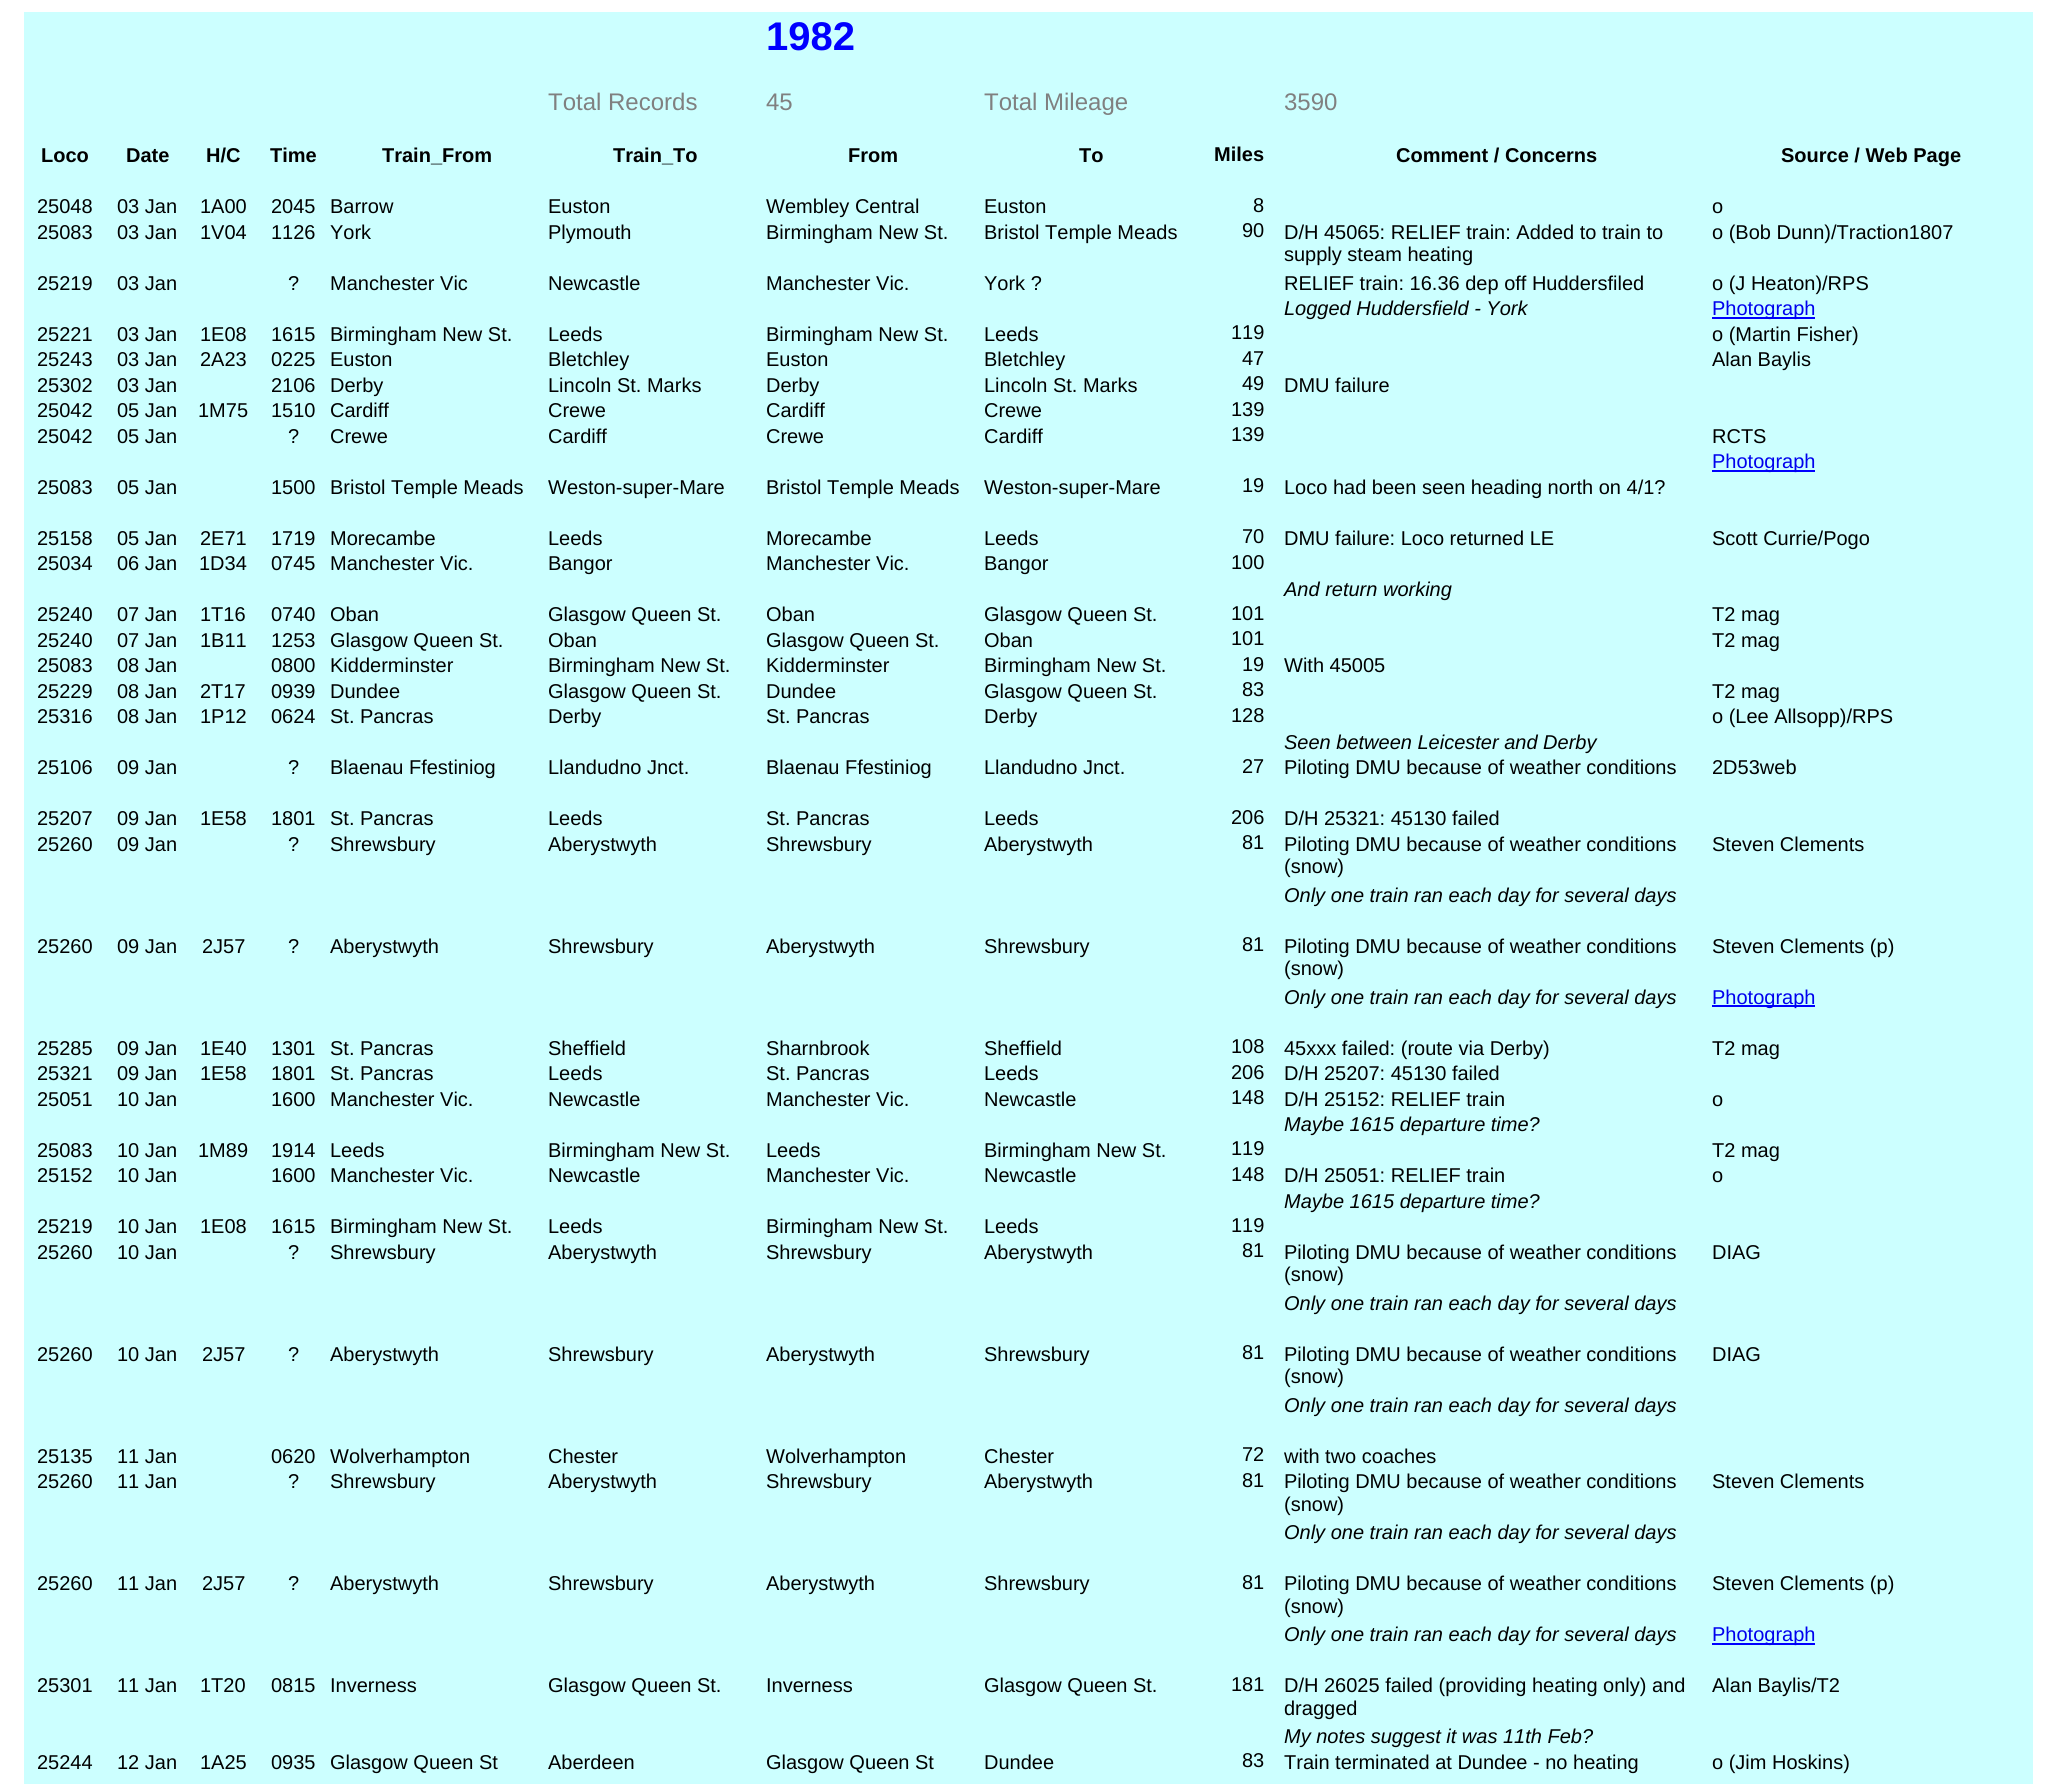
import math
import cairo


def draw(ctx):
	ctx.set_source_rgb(1, 1, 1)
	ctx.paint()
	ctx.set_source_rgb(0.8, 1, 1)
	ctx.rectangle(24, 12, 2009, 1772)
	ctx.fill()
	ctx.select_font_face('Liberation Sans', cairo.FONT_SLANT_NORMAL, cairo.FONT_WEIGHT_BOLD)
	ctx.set_font_size(40)
	ctx.set_source_rgb(0, 0, 1)
	ctx.move_to(766, 50)
	ctx.show_text('1982')
	ctx.select_font_face('Liberation Sans')
	ctx.set_font_size(24)
	ctx.set_source_rgb(0.502, 0.502, 0.502)
	for x, y, s in [
		(548, 110, 'Total Records'),
		(766, 110, '45'),
		(984, 110, 'Total Mileage'),
		(1284, 110, '3590'),
	]:
		ctx.move_to(x, y)
		ctx.show_text(s)
	ctx.select_font_face('Liberation Sans', cairo.FONT_SLANT_NORMAL, cairo.FONT_WEIGHT_BOLD)
	ctx.set_font_size(20)
	ctx.set_source_rgb(0, 0, 0)
	for x, y, s in [
		(41, 162, 'Loco'),
		(126, 162, 'Date'),
		(206, 162, 'H/C'),
		(270, 162, 'Time'),
		(382, 162, 'Train_From'),
		(613, 162, 'Train_To'),
		(848, 162, 'From'),
		(1079, 162, 'To'),
		(1214, 161, 'Miles'),
		(1396, 162, 'Comment / Concerns'),
		(1781, 162, 'Source / Web Page'),
	]:
		ctx.move_to(x, y)
		ctx.show_text(s)
	ctx.select_font_face('Liberation Sans')
	for x, y, s in [
		(37, 213, '25048'),
		(117, 213, '03 Jan'),
		(200, 213, '1A00'),
		(271, 213, '2045'),
		(330, 213, 'Barrow'),
		(548, 213, 'Euston'),
		(766, 213, 'Wembley Central'),
		(984, 213, 'Euston'),
		(1253, 212, '8'),
		(1712, 213, 'o'),
		(37, 239, '25083'),
		(117, 239, '03 Jan'),
		(200, 239, '1V04'),
		(271, 239, '1126'),
		(330, 239, 'York'),
		(548, 239, 'Plymouth'),
		(766, 239, 'Birmingham New St.'),
		(984, 239, 'Bristol Temple Meads'),
		(1242, 237, '90'),
		(1284, 239, 'D/H 45065: RELIEF train: Added to train to'),
		(1284, 261, 'supply steam heating'),
		(1712, 239, 'o (Bob Dunn)/Traction1807'),
		(37, 290, '25219'),
		(117, 290, '03 Jan'),
		(288, 290, '?'),
		(330, 290, 'Manchester Vic'),
		(548, 290, 'Newcastle'),
		(766, 290, 'Manchester Vic.'),
		(984, 290, 'York ?'),
		(1284, 290, 'RELIEF train: 16.36 dep off Huddersfiled'),
		(1712, 290, 'o (J Heaton)/RPS'),
	]:
		ctx.move_to(x, y)
		ctx.show_text(s)
	ctx.select_font_face('Liberation Sans', cairo.FONT_SLANT_ITALIC)
	ctx.move_to(1284, 315)
	ctx.show_text('Logged Huddersfield - York')
	ctx.set_source_rgb(0, 0, 1)
	ctx.rectangle(1712, 317, 103, 2)
	ctx.fill()
	ctx.select_font_face('Liberation Sans')
	ctx.set_source_rgb(0, 0, 0.933)
	ctx.move_to(1712, 315)
	ctx.show_text('Photograph')
	ctx.set_source_rgb(0, 0, 0)
	for x, y, s in [
		(37, 341, '25221'),
		(117, 341, '03 Jan'),
		(200, 341, '1E08'),
		(271, 341, '1615'),
		(330, 341, 'Birmingham New St.'),
		(548, 341, 'Leeds'),
		(766, 341, 'Birmingham New St.'),
		(984, 341, 'Leeds'),
		(1231, 339, '119'),
		(1712, 341, 'o (Martin Fisher)'),
		(37, 366, '25243'),
		(117, 366, '03 Jan'),
		(200, 366, '2A23'),
		(271, 366, '0225'),
		(330, 366, 'Euston'),
		(548, 366, 'Bletchley'),
		(766, 366, 'Euston'),
		(984, 366, 'Bletchley'),
		(1242, 365, '47'),
		(1712, 366, 'Alan Baylis'),
		(37, 392, '25302'),
		(117, 392, '03 Jan'),
		(271, 392, '2106'),
		(330, 392, 'Derby'),
		(548, 392, 'Lincoln St. Marks'),
		(766, 392, 'Derby'),
		(984, 392, 'Lincoln St. Marks'),
		(1242, 390, '49'),
		(1284, 392, 'DMU failure'),
		(37, 417, '25042'),
		(117, 417, '05 Jan'),
		(198, 417, '1M75'),
		(271, 417, '1510'),
		(330, 417, 'Cardiff'),
		(548, 417, 'Crewe'),
		(766, 417, 'Cardiff'),
		(984, 417, 'Crewe'),
		(1231, 416, '139'),
		(37, 443, '25042'),
		(117, 443, '05 Jan'),
		(288, 443, '?'),
		(330, 443, 'Crewe'),
		(548, 443, 'Cardiff'),
		(766, 443, 'Crewe'),
		(984, 443, 'Cardiff'),
		(1231, 441, '139'),
		(1712, 443, 'RCTS'),
	]:
		ctx.move_to(x, y)
		ctx.show_text(s)
	ctx.set_source_rgb(0, 0, 1)
	ctx.rectangle(1712, 470, 103, 2)
	ctx.fill()
	ctx.set_source_rgb(0, 0, 0.933)
	ctx.move_to(1712, 468)
	ctx.show_text('Photograph')
	ctx.set_source_rgb(0, 0, 0)
	for x, y, s in [
		(37, 494, '25083'),
		(117, 494, '05 Jan'),
		(271, 494, '1500'),
		(330, 494, 'Bristol Temple Meads'),
		(548, 494, 'Weston-super-Mare'),
		(766, 494, 'Bristol Temple Meads'),
		(984, 494, 'Weston-super-Mare'),
		(1242, 492, '19'),
		(1284, 494, 'Loco had been seen heading north on 4/1?'),
		(37, 545, '25158'),
		(117, 545, '05 Jan'),
		(200, 545, '2E71'),
		(271, 545, '1719'),
		(330, 545, 'Morecambe'),
		(548, 545, 'Leeds'),
		(766, 545, 'Morecambe'),
		(984, 545, 'Leeds'),
		(1242, 543, '70'),
		(1284, 545, 'DMU failure: Loco returned LE'),
		(1712, 545, 'Scott Currie/Pogo'),
		(37, 570, '25034'),
		(117, 570, '06 Jan'),
		(199, 570, '1D34'),
		(271, 570, '0745'),
		(330, 570, 'Manchester Vic.'),
		(548, 570, 'Bangor'),
		(766, 570, 'Manchester Vic.'),
		(984, 570, 'Bangor'),
		(1231, 569, '100'),
	]:
		ctx.move_to(x, y)
		ctx.show_text(s)
	ctx.select_font_face('Liberation Sans', cairo.FONT_SLANT_ITALIC)
	ctx.move_to(1284, 596)
	ctx.show_text('And return working')
	ctx.select_font_face('Liberation Sans')
	for x, y, s in [
		(37, 621, '25240'),
		(117, 621, '07 Jan'),
		(200, 621, '1T16'),
		(271, 621, '0740'),
		(330, 621, 'Oban'),
		(548, 621, 'Glasgow Queen St.'),
		(766, 621, 'Oban'),
		(984, 621, 'Glasgow Queen St.'),
		(1231, 620, '101'),
		(1712, 621, 'T2 mag'),
		(37, 647, '25240'),
		(117, 647, '07 Jan'),
		(200, 647, '1B11'),
		(271, 647, '1253'),
		(330, 647, 'Glasgow Queen St.'),
		(548, 647, 'Oban'),
		(766, 647, 'Glasgow Queen St.'),
		(984, 647, 'Oban'),
		(1231, 645, '101'),
		(1712, 647, 'T2 mag'),
		(37, 672, '25083'),
		(117, 672, '08 Jan'),
		(271, 672, '0800'),
		(330, 672, 'Kidderminster'),
		(548, 672, 'Birmingham New St.'),
		(766, 672, 'Kidderminster'),
		(984, 672, 'Birmingham New St.'),
		(1242, 671, '19'),
		(1284, 672, 'With 45005'),
		(37, 698, '25229'),
		(117, 698, '08 Jan'),
		(200, 698, '2T17'),
		(271, 698, '0939'),
		(330, 698, 'Dundee'),
		(548, 698, 'Glasgow Queen St.'),
		(766, 698, 'Dundee'),
		(984, 698, 'Glasgow Queen St.'),
		(1242, 696, '83'),
		(1712, 698, 'T2 mag'),
		(37, 723, '25316'),
		(117, 723, '08 Jan'),
		(200, 723, '1P12'),
		(271, 723, '0624'),
		(330, 723, 'St. Pancras'),
		(548, 723, 'Derby'),
		(766, 723, 'St. Pancras'),
		(984, 723, 'Derby'),
		(1231, 722, '128'),
		(1712, 723, 'o (Lee Allsopp)/RPS'),
	]:
		ctx.move_to(x, y)
		ctx.show_text(s)
	ctx.select_font_face('Liberation Sans', cairo.FONT_SLANT_ITALIC)
	ctx.move_to(1284, 749)
	ctx.show_text('Seen between Leicester and Derby')
	ctx.select_font_face('Liberation Sans')
	for x, y, s in [
		(37, 774, '25106'),
		(117, 774, '09 Jan'),
		(288, 774, '?'),
		(330, 774, 'Blaenau Ffestiniog'),
		(548, 774, 'Llandudno Jnct.'),
		(766, 774, 'Blaenau Ffestiniog'),
		(984, 774, 'Llandudno Jnct.'),
		(1242, 773, '27'),
		(1284, 774, 'Piloting DMU because of weather conditions'),
		(1712, 774, '2D53web'),
		(37, 825, '25207'),
		(117, 825, '09 Jan'),
		(200, 825, '1E58'),
		(271, 825, '1801'),
		(330, 825, 'St. Pancras'),
		(548, 825, 'Leeds'),
		(766, 825, 'St. Pancras'),
		(984, 825, 'Leeds'),
		(1231, 824, '206'),
		(1284, 825, 'D/H 25321: 45130 failed'),
		(37, 851, '25260'),
		(117, 851, '09 Jan'),
		(288, 851, '?'),
		(330, 851, 'Shrewsbury'),
		(548, 851, 'Aberystwyth'),
		(766, 851, 'Shrewsbury'),
		(984, 851, 'Aberystwyth'),
		(1242, 849, '81'),
		(1284, 851, 'Piloting DMU because of weather conditions'),
		(1284, 873, '(snow)'),
		(1712, 851, 'Steven Clements'),
	]:
		ctx.move_to(x, y)
		ctx.show_text(s)
	ctx.select_font_face('Liberation Sans', cairo.FONT_SLANT_ITALIC)
	ctx.move_to(1284, 902)
	ctx.show_text('Only one train ran each day for several days')
	ctx.select_font_face('Liberation Sans')
	for x, y, s in [
		(37, 953, '25260'),
		(117, 953, '09 Jan'),
		(202, 953, '2J57'),
		(288, 953, '?'),
		(330, 953, 'Aberystwyth'),
		(548, 953, 'Shrewsbury'),
		(766, 953, 'Aberystwyth'),
		(984, 953, 'Shrewsbury'),
		(1242, 951, '81'),
		(1284, 953, 'Piloting DMU because of weather conditions'),
		(1284, 975, '(snow)'),
		(1712, 953, 'Steven Clements (p)'),
	]:
		ctx.move_to(x, y)
		ctx.show_text(s)
	ctx.select_font_face('Liberation Sans', cairo.FONT_SLANT_ITALIC)
	ctx.move_to(1284, 1004)
	ctx.show_text('Only one train ran each day for several days')
	ctx.set_source_rgb(0, 0, 1)
	ctx.rectangle(1712, 1005, 103, 2)
	ctx.fill()
	ctx.select_font_face('Liberation Sans')
	ctx.set_source_rgb(0, 0, 0.933)
	ctx.move_to(1712, 1004)
	ctx.show_text('Photograph')
	ctx.set_source_rgb(0, 0, 0)
	for x, y, s in [
		(37, 1055, '25285'),
		(117, 1055, '09 Jan'),
		(200, 1055, '1E40'),
		(271, 1055, '1301'),
		(330, 1055, 'St. Pancras'),
		(548, 1055, 'Sheffield'),
		(766, 1055, 'Sharnbrook'),
		(984, 1055, 'Sheffield'),
		(1231, 1053, '108'),
		(1284, 1055, '45xxx failed: (route via Derby)'),
		(1712, 1055, 'T2 mag'),
		(37, 1080, '25321'),
		(117, 1080, '09 Jan'),
		(200, 1080, '1E58'),
		(271, 1080, '1801'),
		(330, 1080, 'St. Pancras'),
		(548, 1080, 'Leeds'),
		(766, 1080, 'St. Pancras'),
		(984, 1080, 'Leeds'),
		(1231, 1079, '206'),
		(1284, 1080, 'D/H 25207: 45130 failed'),
		(37, 1106, '25051'),
		(117, 1106, '10 Jan'),
		(271, 1106, '1600'),
		(330, 1106, 'Manchester Vic.'),
		(548, 1106, 'Newcastle'),
		(766, 1106, 'Manchester Vic.'),
		(984, 1106, 'Newcastle'),
		(1231, 1104, '148'),
		(1284, 1106, 'D/H 25152: RELIEF train'),
		(1712, 1106, 'o'),
	]:
		ctx.move_to(x, y)
		ctx.show_text(s)
	ctx.select_font_face('Liberation Sans', cairo.FONT_SLANT_ITALIC)
	ctx.move_to(1284, 1131)
	ctx.show_text('Maybe 1615 departure time?')
	ctx.select_font_face('Liberation Sans')
	for x, y, s in [
		(37, 1157, '25083'),
		(117, 1157, '10 Jan'),
		(198, 1157, '1M89'),
		(271, 1157, '1914'),
		(330, 1157, 'Leeds'),
		(548, 1157, 'Birmingham New St.'),
		(766, 1157, 'Leeds'),
		(984, 1157, 'Birmingham New St.'),
		(1231, 1155, '119'),
		(1712, 1157, 'T2 mag'),
		(37, 1182, '25152'),
		(117, 1182, '10 Jan'),
		(271, 1182, '1600'),
		(330, 1182, 'Manchester Vic.'),
		(548, 1182, 'Newcastle'),
		(766, 1182, 'Manchester Vic.'),
		(984, 1182, 'Newcastle'),
		(1231, 1181, '148'),
		(1284, 1182, 'D/H 25051: RELIEF train'),
		(1712, 1182, 'o'),
	]:
		ctx.move_to(x, y)
		ctx.show_text(s)
	ctx.select_font_face('Liberation Sans', cairo.FONT_SLANT_ITALIC)
	ctx.move_to(1284, 1208)
	ctx.show_text('Maybe 1615 departure time?')
	ctx.select_font_face('Liberation Sans')
	for x, y, s in [
		(37, 1233, '25219'),
		(117, 1233, '10 Jan'),
		(200, 1233, '1E08'),
		(271, 1233, '1615'),
		(330, 1233, 'Birmingham New St.'),
		(548, 1233, 'Leeds'),
		(766, 1233, 'Birmingham New St.'),
		(984, 1233, 'Leeds'),
		(1231, 1232, '119'),
		(37, 1259, '25260'),
		(117, 1259, '10 Jan'),
		(288, 1259, '?'),
		(330, 1259, 'Shrewsbury'),
		(548, 1259, 'Aberystwyth'),
		(766, 1259, 'Shrewsbury'),
		(984, 1259, 'Aberystwyth'),
		(1242, 1257, '81'),
		(1284, 1259, 'Piloting DMU because of weather conditions'),
		(1284, 1281, '(snow)'),
		(1712, 1259, 'DIAG'),
	]:
		ctx.move_to(x, y)
		ctx.show_text(s)
	ctx.select_font_face('Liberation Sans', cairo.FONT_SLANT_ITALIC)
	ctx.move_to(1284, 1310)
	ctx.show_text('Only one train ran each day for several days')
	ctx.select_font_face('Liberation Sans')
	for x, y, s in [
		(37, 1361, '25260'),
		(117, 1361, '10 Jan'),
		(202, 1361, '2J57'),
		(288, 1361, '?'),
		(330, 1361, 'Aberystwyth'),
		(548, 1361, 'Shrewsbury'),
		(766, 1361, 'Aberystwyth'),
		(984, 1361, 'Shrewsbury'),
		(1242, 1359, '81'),
		(1284, 1361, 'Piloting DMU because of weather conditions'),
		(1284, 1383, '(snow)'),
		(1712, 1361, 'DIAG'),
	]:
		ctx.move_to(x, y)
		ctx.show_text(s)
	ctx.select_font_face('Liberation Sans', cairo.FONT_SLANT_ITALIC)
	ctx.move_to(1284, 1412)
	ctx.show_text('Only one train ran each day for several days')
	ctx.select_font_face('Liberation Sans')
	for x, y, s in [
		(37, 1463, '25135'),
		(117, 1463, '11 Jan'),
		(271, 1463, '0620'),
		(330, 1463, 'Wolverhampton'),
		(548, 1463, 'Chester'),
		(766, 1463, 'Wolverhampton'),
		(984, 1463, 'Chester'),
		(1242, 1461, '72'),
		(1284, 1463, 'with two coaches'),
		(37, 1488, '25260'),
		(117, 1488, '11 Jan'),
		(288, 1488, '?'),
		(330, 1488, 'Shrewsbury'),
		(548, 1488, 'Aberystwyth'),
		(766, 1488, 'Shrewsbury'),
		(984, 1488, 'Aberystwyth'),
		(1242, 1487, '81'),
		(1284, 1488, 'Piloting DMU because of weather conditions'),
		(1284, 1511, '(snow)'),
		(1712, 1488, 'Steven Clements'),
	]:
		ctx.move_to(x, y)
		ctx.show_text(s)
	ctx.select_font_face('Liberation Sans', cairo.FONT_SLANT_ITALIC)
	ctx.move_to(1284, 1539)
	ctx.show_text('Only one train ran each day for several days')
	ctx.select_font_face('Liberation Sans')
	for x, y, s in [
		(37, 1590, '25260'),
		(117, 1590, '11 Jan'),
		(202, 1590, '2J57'),
		(288, 1590, '?'),
		(330, 1590, 'Aberystwyth'),
		(548, 1590, 'Shrewsbury'),
		(766, 1590, 'Aberystwyth'),
		(984, 1590, 'Shrewsbury'),
		(1242, 1589, '81'),
		(1284, 1590, 'Piloting DMU because of weather conditions'),
		(1284, 1613, '(snow)'),
		(1712, 1590, 'Steven Clements (p)'),
	]:
		ctx.move_to(x, y)
		ctx.show_text(s)
	ctx.select_font_face('Liberation Sans', cairo.FONT_SLANT_ITALIC)
	ctx.move_to(1284, 1641)
	ctx.show_text('Only one train ran each day for several days')
	ctx.set_source_rgb(0, 0, 1)
	ctx.rectangle(1712, 1643, 103, 2)
	ctx.fill()
	ctx.select_font_face('Liberation Sans')
	ctx.set_source_rgb(0, 0, 0.933)
	ctx.move_to(1712, 1641)
	ctx.show_text('Photograph')
	ctx.set_source_rgb(0, 0, 0)
	for x, y, s in [
		(37, 1692, '25301'),
		(117, 1692, '11 Jan'),
		(200, 1692, '1T20'),
		(271, 1692, '0815'),
		(330, 1692, 'Inverness'),
		(548, 1692, 'Glasgow Queen St.'),
		(766, 1692, 'Inverness'),
		(984, 1692, 'Glasgow Queen St.'),
		(1231, 1691, '181'),
		(1284, 1692, 'D/H 26025 failed (providing heating only) and'),
		(1284, 1715, 'dragged'),
		(1712, 1692, 'Alan Baylis/T2'),
	]:
		ctx.move_to(x, y)
		ctx.show_text(s)
	ctx.select_font_face('Liberation Sans', cairo.FONT_SLANT_ITALIC)
	ctx.move_to(1284, 1743)
	ctx.show_text('My notes suggest it was 11th Feb?')
	ctx.select_font_face('Liberation Sans')
	for x, y, s in [
		(37, 1769, '25244'),
		(117, 1769, '12 Jan'),
		(200, 1769, '1A25'),
		(271, 1769, '0935'),
		(330, 1769, 'Glasgow Queen St'),
		(548, 1769, 'Aberdeen'),
		(766, 1769, 'Glasgow Queen St'),
		(984, 1769, 'Dundee'),
		(1242, 1767, '83'),
		(1284, 1769, 'Train terminated at Dundee - no heating'),
		(1712, 1769, 'o (Jim Hoskins)'),
	]:
		ctx.move_to(x, y)
		ctx.show_text(s)


surface = cairo.ImageSurface(cairo.FORMAT_RGB24, 2056, 1784)
ctx = cairo.Context(surface)
options = cairo.FontOptions()
options.set_hint_metrics(cairo.HINT_METRICS_OFF)
options.set_hint_style(cairo.HINT_STYLE_NONE)
ctx.set_font_options(options)
ctx.set_miter_limit(4)
draw(ctx)
surface.write_to_png('image.png')
